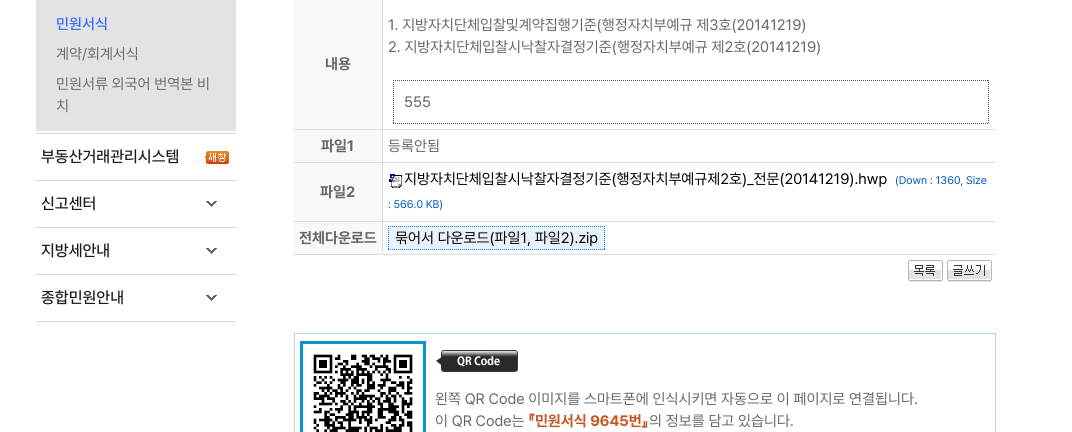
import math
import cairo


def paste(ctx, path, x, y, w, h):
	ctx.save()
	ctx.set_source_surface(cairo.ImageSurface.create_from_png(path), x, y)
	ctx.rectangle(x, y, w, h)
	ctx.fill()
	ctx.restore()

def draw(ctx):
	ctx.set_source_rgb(1, 1, 1)
	ctx.paint()
	ctx.set_source_rgb(0.847, 0.839, 0.839)
	ctx.rectangle(36, 133, 200, 1)
	ctx.fill()
	ctx.set_source_rgb(0.89, 0.89, 0.89)
	ctx.rectangle(36, 0, 200, 131)
	ctx.fill()
	ctx.select_font_face('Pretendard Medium')
	ctx.set_font_size(15)
	ctx.set_source_rgb(0.2, 0.4, 1)
	ctx.move_to(56, 29)
	ctx.show_text('민원서식')
	ctx.select_font_face('Pretendard')
	ctx.set_source_rgb(0.427, 0.424, 0.424)
	for x, y, s in [
		(56, 59, '계약/회계서식'),
		(56, 89, '민원서류 외국어 번역본 비'),
		(56, 111, '치'),
	]:
		ctx.move_to(x, y)
		ctx.show_text(s)
	ctx.set_source_rgb(0.847, 0.839, 0.839)
	ctx.rectangle(36, 180, 200, 1)
	ctx.fill()
	paste(ctx, 'media/1.png', 205, 151, 24, 13)
	ctx.select_font_face('Pretendard Medium')
	ctx.set_font_size(16)
	ctx.set_source_rgb(0.11, 0.11, 0.11)
	ctx.move_to(41, 162)
	ctx.show_text('부동산거래관리시스템')
	paste(ctx, 'media/2.png', 206, 201, 11, 6)
	ctx.set_source_rgb(0.847, 0.839, 0.839)
	ctx.rectangle(36, 227, 200, 1)
	ctx.fill()
	ctx.set_source_rgb(0.11, 0.11, 0.11)
	ctx.move_to(41, 209)
	ctx.show_text('신고센터')
	paste(ctx, 'media/2.png', 206, 248, 11, 6)
	ctx.set_source_rgb(0.847, 0.839, 0.839)
	ctx.rectangle(36, 274, 200, 1)
	ctx.fill()
	ctx.set_source_rgb(0.11, 0.11, 0.11)
	ctx.move_to(41, 256)
	ctx.show_text('지방세안내')
	paste(ctx, 'media/2.png', 206, 295, 11, 6)
	ctx.set_source_rgb(0.847, 0.839, 0.839)
	ctx.rectangle(36, 321, 200, 1)
	ctx.fill()
	ctx.set_source_rgb(0.11, 0.11, 0.11)
	ctx.move_to(41, 303)
	ctx.show_text('종합민원안내')
	ctx.set_source_rgb(0.969, 0.969, 0.969)
	ctx.rectangle(294, 0, 88, 129)
	ctx.fill()
	ctx.select_font_face('Pretendard', cairo.FONT_SLANT_NORMAL, cairo.FONT_WEIGHT_BOLD)
	ctx.set_font_size(15)
	ctx.set_source_rgb(0.4, 0.4, 0.4)
	ctx.move_to(325, 69)
	ctx.show_text('내용')
	ctx.select_font_face('Pretendard')
	ctx.move_to(388, 30)
	ctx.show_text('1. 지방자치단체입찰및계약집행기준(행정자치부예규 제3호(20141219)')
	ctx.move_to(388, 52)
	ctx.show_text('2. 지방자치단체입찰시낙찰자결정기준(행정자치부예규 제2호(20141219)')
	ctx.new_path()
	ctx.move_to(393, 80.5)
	ctx.line_to(989, 80.5)
	ctx.set_source_rgb(0.333, 0.333, 0.333)
	ctx.set_line_width(1)
	ctx.set_dash([1, 1])
	ctx.stroke()
	ctx.new_path()
	ctx.move_to(988.5, 80)
	ctx.line_to(988.5, 124)
	ctx.stroke()
	ctx.new_path()
	ctx.move_to(393, 123.5)
	ctx.line_to(989, 123.5)
	ctx.stroke()
	ctx.new_path()
	ctx.move_to(393.5, 80)
	ctx.line_to(393.5, 124)
	ctx.stroke()
	ctx.set_source_rgb(0.4, 0.4, 0.4)
	ctx.move_to(404, 107)
	ctx.show_text('555')
	ctx.set_source_rgb(0.969, 0.969, 0.969)
	ctx.rectangle(294, 130, 88, 32)
	ctx.fill()
	ctx.set_source_rgb(0.867, 0.867, 0.867)
	ctx.rectangle(294, 129, 701, 1)
	ctx.rectangle(294, 162, 701, 1)
	ctx.rectangle(294, 221, 701, 1)
	ctx.rectangle(382, 254, 613, 1)
	ctx.rectangle(382, 221, 1, 34)
	ctx.rectangle(382, 162, 1, 60)
	ctx.rectangle(382, 0, 1, 163)
	ctx.fill()
	ctx.select_font_face('Pretendard', cairo.FONT_SLANT_NORMAL, cairo.FONT_WEIGHT_BOLD)
	ctx.set_source_rgb(0.4, 0.4, 0.4)
	ctx.move_to(321, 151)
	ctx.show_text('파일1')
	ctx.select_font_face('Pretendard')
	ctx.move_to(388, 151)
	ctx.show_text('등록안됨')
	ctx.set_source_rgb(0.969, 0.969, 0.969)
	ctx.rectangle(294, 163, 88, 58)
	ctx.fill()
	ctx.select_font_face('Pretendard', cairo.FONT_SLANT_NORMAL, cairo.FONT_WEIGHT_BOLD)
	ctx.set_source_rgb(0.4, 0.4, 0.4)
	ctx.move_to(320, 197)
	ctx.show_text('파일2')
	paste(ctx, 'media/3.png', 389, 174, 13, 14)
	ctx.select_font_face('Pretendard')
	ctx.set_source_rgb(0, 0, 0)
	ctx.move_to(404, 184)
	ctx.show_text('지방자치단체입찰시낙찰자결정기준(행정자치부예규제2호)_전문(20141219).hwp')
	ctx.set_font_size(11)
	ctx.set_source_rgb(0, 0.365, 0.749)
	ctx.move_to(895, 184)
	ctx.show_text('(Down : 1360, Size')
	ctx.move_to(388, 208)
	ctx.show_text(': 566.0 KB)')
	ctx.set_source_rgb(0.969, 0.969, 0.969)
	ctx.rectangle(294, 222, 88, 32)
	ctx.fill()
	ctx.set_source_rgb(0.867, 0.867, 0.867)
	ctx.rectangle(294, 254, 89, 1)
	ctx.fill()
	ctx.select_font_face('Pretendard', cairo.FONT_SLANT_NORMAL, cairo.FONT_WEIGHT_BOLD)
	ctx.set_font_size(15)
	ctx.set_source_rgb(0.4, 0.4, 0.4)
	ctx.move_to(299, 243)
	ctx.show_text('전체다운로드')
	ctx.set_source_rgb(0.91, 0.949, 0.988)
	ctx.rectangle(388, 226, 217, 24)
	ctx.fill()
	ctx.select_font_face('Pretendard')
	ctx.set_source_rgb(0, 0, 0)
	ctx.move_to(395, 243)
	ctx.show_text('묶어서 다운로드(파일1, 파일2).zip')
	ctx.new_path()
	ctx.move_to(388, 226.5)
	ctx.line_to(605, 226.5)
	ctx.set_source_rgb(0, 0.486, 1)
	ctx.stroke()
	ctx.new_path()
	ctx.move_to(604.5, 226)
	ctx.line_to(604.5, 250)
	ctx.stroke()
	ctx.new_path()
	ctx.move_to(388, 249.5)
	ctx.line_to(605, 249.5)
	ctx.stroke()
	ctx.new_path()
	ctx.move_to(388.5, 226)
	ctx.line_to(388.5, 250)
	ctx.stroke()
	paste(ctx, 'media/4.png', 908, 260, 35, 22)
	paste(ctx, 'media/5.png', 947, 260, 45, 22)
	ctx.rectangle(294.5, 333.5, 701, 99)
	ctx.set_source_rgb(0.702, 0.847, 0.906)
	ctx.set_dash([])
	ctx.stroke()
	ctx.rectangle(301.5, 342.5, 123, 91)
	ctx.set_source_rgb(0, 0.6, 0.8)
	ctx.set_line_width(3)
	ctx.stroke()
	paste(ctx, 'media/6.png', 313, 354, 100, 78)
	paste(ctx, 'media/7.png', 436, 350, 82, 22)
	ctx.set_source_rgb(0.4, 0.4, 0.4)
	ctx.move_to(435, 404)
	ctx.show_text('왼쪽 QR Code 이미지를 스마트폰에 인식시키면 자동으로 이 페이지로 연결됩니다.')
	ctx.move_to(435, 426)
	ctx.show_text('이 QR Code는')
	ctx.select_font_face('Pretendard', cairo.FONT_SLANT_NORMAL, cairo.FONT_WEIGHT_BOLD)
	ctx.set_source_rgb(0.765, 0.337, 0.133)
	ctx.move_to(528, 426)
	ctx.show_text('『민원서식 9645번』')
	ctx.select_font_face('Pretendard')
	ctx.set_source_rgb(0.4, 0.4, 0.4)
	ctx.move_to(649, 426)
	ctx.show_text('의 정보를 담고 있습니다.')


surface = cairo.ImageSurface(cairo.FORMAT_RGB24, 1072, 432)
ctx = cairo.Context(surface)
options = cairo.FontOptions()
options.set_hint_metrics(cairo.HINT_METRICS_OFF)
options.set_hint_style(cairo.HINT_STYLE_NONE)
ctx.set_font_options(options)
ctx.set_miter_limit(4)
draw(ctx)
surface.write_to_png('image.png')
